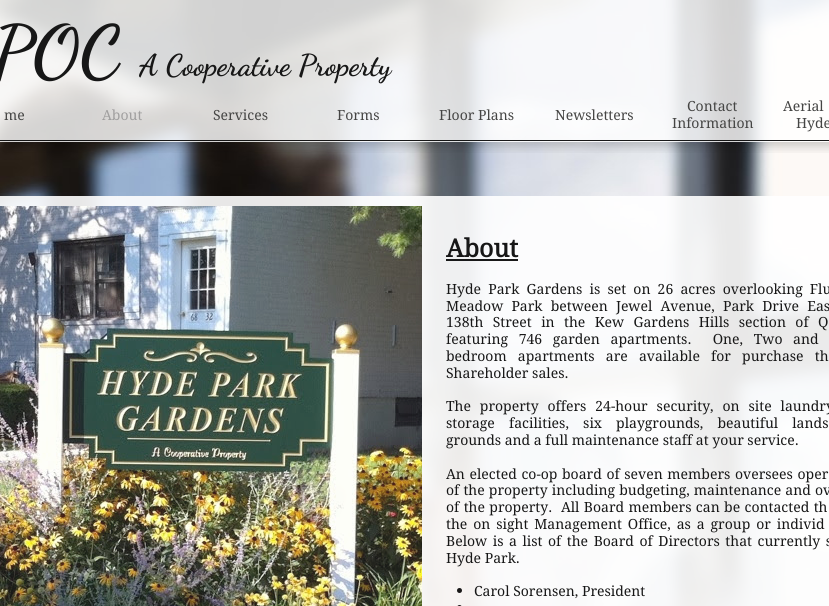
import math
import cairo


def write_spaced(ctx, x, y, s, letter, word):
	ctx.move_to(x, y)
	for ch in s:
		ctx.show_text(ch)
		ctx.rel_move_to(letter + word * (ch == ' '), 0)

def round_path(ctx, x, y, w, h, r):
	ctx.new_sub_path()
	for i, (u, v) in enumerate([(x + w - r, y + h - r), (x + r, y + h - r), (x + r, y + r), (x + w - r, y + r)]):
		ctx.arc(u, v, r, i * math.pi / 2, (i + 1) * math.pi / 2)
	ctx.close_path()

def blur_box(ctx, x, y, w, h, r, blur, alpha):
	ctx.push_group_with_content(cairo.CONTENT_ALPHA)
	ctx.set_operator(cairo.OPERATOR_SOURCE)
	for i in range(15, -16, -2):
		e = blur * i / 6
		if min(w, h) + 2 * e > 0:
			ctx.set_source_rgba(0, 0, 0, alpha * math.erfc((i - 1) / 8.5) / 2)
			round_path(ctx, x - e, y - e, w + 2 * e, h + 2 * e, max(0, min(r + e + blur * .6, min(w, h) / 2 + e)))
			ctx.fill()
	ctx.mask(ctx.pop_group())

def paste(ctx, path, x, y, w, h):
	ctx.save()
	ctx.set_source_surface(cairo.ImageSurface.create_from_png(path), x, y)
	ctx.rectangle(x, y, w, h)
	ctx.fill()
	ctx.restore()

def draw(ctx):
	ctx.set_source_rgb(1, 1, 1)
	ctx.paint()
	paste(ctx, 'media/1.png', 0, 0, 829, 606)
	ctx.set_source_rgba(1, 1, 1, 0.81)
	ctx.rectangle(0, 0, 829, 142)
	ctx.fill()
	ctx.save()
	ctx.rectangle(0, 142, 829, 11)
	ctx.clip()
	ctx.set_source_rgb(0, 0, 0)
	blur_box(ctx, 5, 5, 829, 142, 0, 5, 0.19)
	ctx.restore()
	ctx.select_font_face('Dancing Script', cairo.FONT_SLANT_NORMAL, cairo.FONT_WEIGHT_BOLD)
	ctx.set_font_size(72)
	ctx.set_source_rgb(0.09, 0.09, 0.09)
	ctx.move_to(-8, 75)
	ctx.show_text('POC')
	ctx.set_font_size(30)
	ctx.move_to(139, 75)
	ctx.show_text('A Cooperative Property')
	ctx.set_source_rgba(0, 0, 0, 0.9)
	ctx.rectangle(0, 140, 829, 1)
	ctx.fill()
	ctx.select_font_face('Droid Serif')
	ctx.set_font_size(14)
	ctx.set_source_rgb(0.271, 0.271, 0.267)
	ctx.move_to(4, 120)
	ctx.show_text('me')
	ctx.set_source_rgb(0.627, 0.624, 0.624)
	ctx.move_to(102, 120)
	ctx.show_text('About')
	ctx.set_source_rgb(0.271, 0.271, 0.267)
	for x, y, s in [
		(213, 120, 'Services'),
		(337, 120, 'Forms'),
		(439, 120, 'Floor Plans'),
		(555, 120, 'Newsletters'),
		(687, 111, 'Contact'),
		(672, 128, 'Information'),
		(783, 111, 'Aerial'),
		(796, 128, 'Hyde'),
	]:
		ctx.move_to(x, y)
		ctx.show_text(s)
	ctx.set_source_rgba(1, 1, 1, 0.9)
	ctx.rectangle(0, 196, 829, 410)
	ctx.fill()
	paste(ctx, 'media/2.png', 0, 206, 422, 400)
	ctx.select_font_face('Droid Serif', cairo.FONT_SLANT_NORMAL, cairo.FONT_WEIGHT_BOLD)
	ctx.set_font_size(25)
	ctx.set_source_rgb(0.09, 0.09, 0.09)
	ctx.move_to(446, 257)
	ctx.show_text('About')
	ctx.set_source_rgba(0, 0, 0, 0.9)
	ctx.rectangle(446, 259, 72, 2)
	ctx.fill()
	ctx.select_font_face('Droid Serif')
	ctx.set_font_size(14)
	ctx.set_source_rgb(0.09, 0.09, 0.09)
	write_spaced(ctx, 446, 294, 'Hyde Park Gardens is set on 26 acres overlooking Flu', 0, 3.5)
	write_spaced(ctx, 446, 311, 'Meadow Park between Jewel Avenue, Park Drive Eas', 0, 4.5)
	write_spaced(ctx, 446, 327, '138th Street in the Kew Gardens Hills section of Q', 0, 5.75)
	write_spaced(ctx, 446, 344, 'featuring 746 garden apartments.  One, Two and', 0, 7)
	write_spaced(ctx, 446, 361, 'bedroom apartments are available for purchase th', 0, 7.5)
	ctx.move_to(446, 378)
	ctx.show_text('Shareholder sales.')
	write_spaced(ctx, 446, 411, 'The property offers 24-hour security, on site laundry', 0, 5.25)
	write_spaced(ctx, 446, 428, 'storage facilities, six playgrounds, beautiful lands', 0, 10.5)
	ctx.move_to(446, 445)
	ctx.show_text('grounds and a full maintenance staff at your service.')
	write_spaced(ctx, 446, 479, 'An elected co-op board of seven members oversees oper', 0, 1)
	write_spaced(ctx, 446, 495, 'of the property including budgeting, maintenance and ov', 0, 0.5)
	write_spaced(ctx, 446, 512, 'of the property.  All Board members can be contacted th', 0, 0.75)
	write_spaced(ctx, 446, 529, 'the on sight Management Office, as a group or individ', 0, 2.25)
	write_spaced(ctx, 446, 546, 'Below is a list of the Board of Directors that currently s', 0, 1.9)
	ctx.move_to(446, 563)
	ctx.show_text('Hyde Park.')
	ctx.set_source_rgb(0.098, 0.094, 0.094)
	ctx.new_path()
	ctx.arc(459.5, 590.5, 2.5, 0, 2 * math.pi)
	ctx.fill()
	ctx.set_source_rgb(0.09, 0.09, 0.09)
	ctx.move_to(474, 596)
	ctx.show_text('Carol Sorensen, President')
	ctx.set_source_rgb(0.098, 0.094, 0.094)
	round_path(ctx, 457, 605, 5, 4, 2.5)
	ctx.fill()


surface = cairo.ImageSurface(cairo.FORMAT_RGB24, 829, 606)
ctx = cairo.Context(surface)
options = cairo.FontOptions()
options.set_hint_metrics(cairo.HINT_METRICS_OFF)
options.set_hint_style(cairo.HINT_STYLE_NONE)
ctx.set_font_options(options)
ctx.set_miter_limit(4)
draw(ctx)
surface.write_to_png('image.png')
